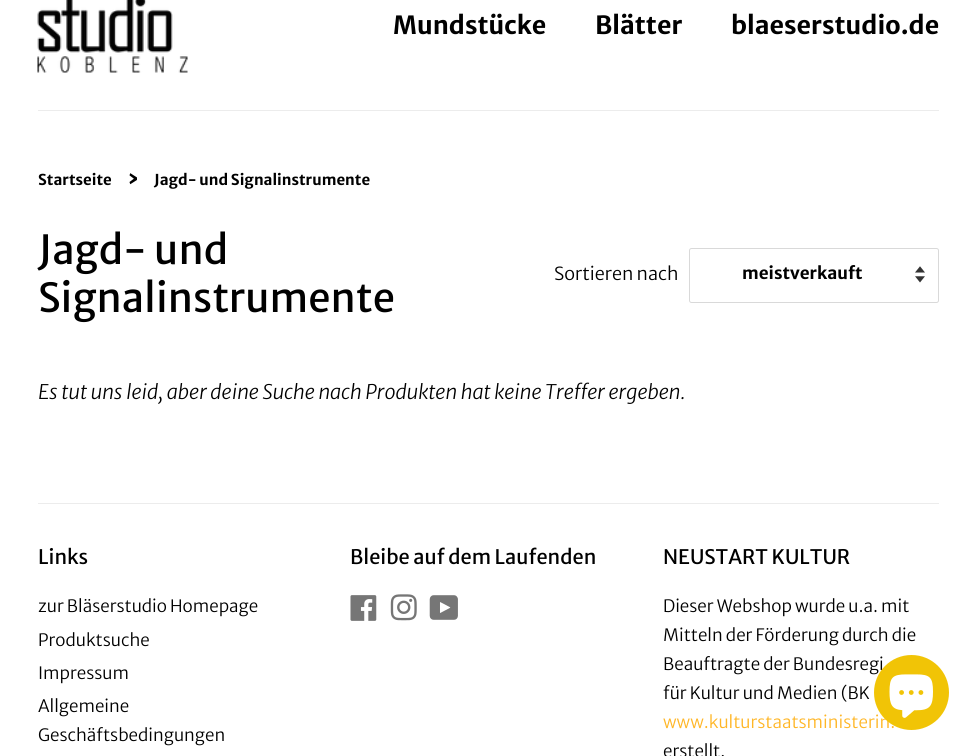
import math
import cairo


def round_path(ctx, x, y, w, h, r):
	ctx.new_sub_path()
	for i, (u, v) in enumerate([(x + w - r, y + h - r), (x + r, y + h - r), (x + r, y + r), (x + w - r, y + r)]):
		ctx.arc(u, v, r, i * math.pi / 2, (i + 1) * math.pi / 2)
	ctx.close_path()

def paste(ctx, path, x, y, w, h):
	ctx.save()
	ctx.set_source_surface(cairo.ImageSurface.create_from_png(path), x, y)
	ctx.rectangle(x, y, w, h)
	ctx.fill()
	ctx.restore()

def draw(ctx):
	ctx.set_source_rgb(1, 1, 1)
	ctx.paint()
	ctx.set_source_rgb(0.922, 0.922, 0.922)
	ctx.rectangle(38, 110, 901, 1)
	ctx.fill()
	paste(ctx, 'media/1.png', 37, 0, 151, 73)
	ctx.select_font_face('Merriweather Sans', cairo.FONT_SLANT_NORMAL, cairo.FONT_WEIGHT_BOLD)
	ctx.set_font_size(25)
	ctx.set_source_rgb(0, 0, 0)
	for x, y, s in [
		(393, 34, 'Mundstücke'),
		(595, 34, 'Blätter'),
		(731, 34, 'blaeserstudio.de'),
	]:
		ctx.move_to(x, y)
		ctx.show_text(s)
	ctx.set_font_size(15)
	ctx.move_to(38, 185)
	ctx.show_text('Startseite')
	ctx.set_font_size(21)
	ctx.move_to(127, 185)
	ctx.show_text('›')
	ctx.set_font_size(15)
	ctx.move_to(154, 185)
	ctx.show_text('Jagd- und Signalinstrumente')
	ctx.select_font_face('Merriweather Sans')
	ctx.set_font_size(40)
	ctx.move_to(38, 264)
	ctx.show_text('Jagd- und')
	ctx.move_to(38, 312)
	ctx.show_text('Signalinstrumente')
	ctx.select_font_face('Merriweather Sans Light')
	ctx.set_font_size(18)
	ctx.move_to(554, 280)
	ctx.show_text('Sortieren nach')
	paste(ctx, 'media/2.png', 915, 266, 10, 17)
	round_path(ctx, 689.5, 248.5, 249, 54, 2)
	ctx.set_source_rgb(0.851, 0.851, 0.851)
	ctx.set_line_width(1)
	ctx.stroke()
	ctx.select_font_face('Merriweather Sans', cairo.FONT_SLANT_NORMAL, cairo.FONT_WEIGHT_BOLD)
	ctx.set_font_size(17)
	ctx.set_source_rgb(0, 0, 0)
	ctx.move_to(742, 279)
	ctx.show_text('meistverkauft')
	ctx.select_font_face('Merriweather Sans Light', cairo.FONT_SLANT_ITALIC)
	ctx.set_font_size(20)
	ctx.move_to(38, 399)
	ctx.show_text('Es tut uns leid, aber deine Suche nach Produkten hat keine Treffer ergeben.')
	ctx.set_source_rgb(0.922, 0.922, 0.922)
	ctx.rectangle(38, 503, 901, 1)
	ctx.fill()
	ctx.select_font_face('Merriweather Sans')
	ctx.set_source_rgb(0, 0, 0)
	ctx.move_to(38, 564)
	ctx.show_text('Links')
	ctx.select_font_face('Merriweather Sans Light')
	ctx.set_font_size(17)
	for x, y, s in [
		(38, 612, 'zur Bläserstudio Homepage'),
		(38, 646, 'Produktsuche'),
		(38, 679, 'Impressum'),
		(38, 712, 'Allgemeine'),
		(38, 741, 'Geschäftsbedingungen'),
	]:
		ctx.move_to(x, y)
		ctx.show_text(s)
	ctx.select_font_face('Merriweather Sans')
	ctx.set_font_size(20)
	ctx.move_to(350, 564)
	ctx.show_text('Bleibe auf dem Laufenden')
	paste(ctx, 'media/3.png', 350, 595, 27, 26)
	paste(ctx, 'media/4.png', 390, 594, 27, 27)
	paste(ctx, 'media/5.png', 429, 595, 29, 25)
	ctx.move_to(663, 564)
	ctx.show_text('NEUSTART KULTUR')
	ctx.select_font_face('Merriweather Sans Light')
	ctx.set_font_size(17)
	for x, y, s in [
		(663, 612, 'Dieser Webshop wurde u.a. mit'),
		(663, 641, 'Mitteln der Förderung durch die'),
		(663, 670, 'Beauftragte der Bundesregi'),
		(663, 699, 'für Kultur und Medien (BK'),
	]:
		ctx.move_to(x, y)
		ctx.show_text(s)
	ctx.set_source_rgb(1, 0.714, 0.149)
	ctx.move_to(663, 728)
	ctx.show_text('www.kulturstaatsministerin.')
	ctx.set_source_rgb(0, 0, 0)
	ctx.move_to(663, 757)
	ctx.show_text('erstellt.')
	ctx.set_source_rgb(0.945, 0.769, 0.027)
	ctx.new_path()
	ctx.arc(911.5, 692.5, 37.5, 0, 2 * math.pi)
	ctx.fill()
	paste(ctx, 'media/6.png', 889, 674, 44, 44)


surface = cairo.ImageSurface(cairo.FORMAT_RGB24, 976, 756)
ctx = cairo.Context(surface)
options = cairo.FontOptions()
options.set_hint_metrics(cairo.HINT_METRICS_OFF)
options.set_hint_style(cairo.HINT_STYLE_NONE)
ctx.set_font_options(options)
ctx.set_miter_limit(4)
draw(ctx)
surface.write_to_png('image.png')
